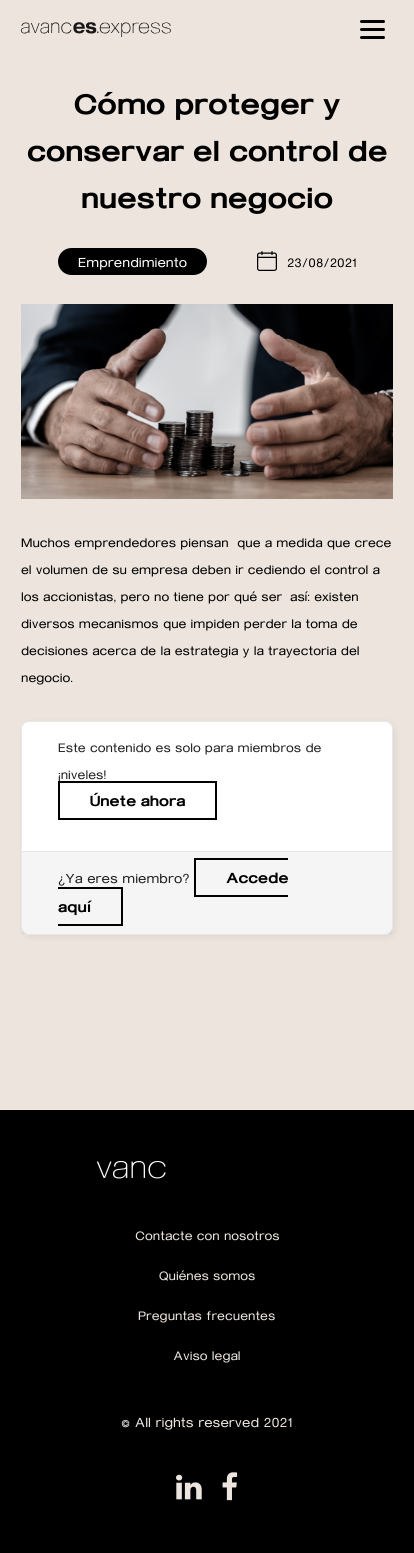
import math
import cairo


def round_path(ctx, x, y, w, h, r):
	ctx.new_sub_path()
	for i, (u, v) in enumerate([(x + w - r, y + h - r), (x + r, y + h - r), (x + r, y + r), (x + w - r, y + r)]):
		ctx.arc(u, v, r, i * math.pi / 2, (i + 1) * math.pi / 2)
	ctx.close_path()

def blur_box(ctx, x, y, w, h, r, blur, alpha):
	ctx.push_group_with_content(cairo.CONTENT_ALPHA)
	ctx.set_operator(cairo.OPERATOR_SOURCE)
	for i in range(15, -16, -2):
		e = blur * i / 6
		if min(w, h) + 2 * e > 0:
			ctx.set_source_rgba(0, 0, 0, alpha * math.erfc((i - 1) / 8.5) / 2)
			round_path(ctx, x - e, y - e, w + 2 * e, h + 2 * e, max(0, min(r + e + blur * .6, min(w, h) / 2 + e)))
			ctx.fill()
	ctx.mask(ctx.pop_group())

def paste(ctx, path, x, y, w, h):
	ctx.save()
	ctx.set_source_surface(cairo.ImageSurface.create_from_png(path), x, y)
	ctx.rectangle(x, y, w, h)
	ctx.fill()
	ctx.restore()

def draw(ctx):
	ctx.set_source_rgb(0.925, 0.894, 0.867)
	ctx.paint()
	paste(ctx, 'media/1.png', 21, 22, 150, 15)
	ctx.set_source_rgb(0, 0, 0)
	round_path(ctx, 360, 28, 25, 3, 1.5)
	ctx.fill()
	round_path(ctx, 360, 20, 25, 3, 1.5)
	ctx.fill()
	round_path(ctx, 360, 36, 25, 3, 1.5)
	ctx.fill()
	ctx.select_font_face('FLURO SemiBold')
	ctx.set_font_size(35)
	for x, y, s in [
		(74, 114, 'Cómo proteger y'),
		(27, 161, 'conservar el control de'),
		(81, 208, 'nuestro negocio'),
	]:
		ctx.move_to(x, y)
		ctx.show_text(s)
	round_path(ctx, 58, 248, 149, 27, 13.5)
	ctx.fill()
	ctx.select_font_face('FLURO')
	ctx.set_font_size(16)
	ctx.set_source_rgb(1, 1, 1)
	ctx.move_to(78, 267)
	ctx.show_text('Emprendimiento')
	paste(ctx, 'media/2.png', 257, 251, 20, 20)
	ctx.set_font_size(15)
	ctx.set_source_rgb(0, 0, 0)
	ctx.move_to(287, 267)
	ctx.show_text('23/08/2021')
	paste(ctx, 'media/3.png', 21, 304, 372, 195)
	for x, y, s in [
		(21, 547, 'Muchos emprendedores piensan'),
		(237, 547, 'que a medida que crece'),
		(21, 574, 'el volumen de su empresa deben ir cediendo el control a'),
		(21, 601, 'los accionistas, pero no tiene por qué ser'),
		(290, 601, 'así: existen'),
		(21, 628, 'diversos mecanismos que impiden perder la toma de'),
		(21, 655, 'decisiones acerca de la estrategia y la trayectoria del'),
		(21, 682, 'negocio.'),
	]:
		ctx.move_to(x, y)
		ctx.show_text(s)
	ctx.set_source_rgb(0, 0, 0)
	blur_box(ctx, 23, 723, 372, 214, 8, 3.5, 0.07)
	ctx.set_source_rgb(1, 1, 1)
	round_path(ctx, 21.5, 721.5, 371, 213, 7.5)
	ctx.fill_preserve()
	ctx.set_source_rgb(0.91, 0.91, 0.91)
	ctx.set_line_width(1)
	ctx.stroke()
	ctx.set_source_rgb(0.133, 0.133, 0.133)
	ctx.move_to(58, 752)
	ctx.show_text('Este contenido es solo para miembros de')
	ctx.move_to(58, 779)
	ctx.show_text('¡niveles!')
	ctx.rectangle(59, 782, 157, 37)
	ctx.set_source_rgb(0, 0, 0)
	ctx.set_line_width(2)
	ctx.stroke()
	ctx.select_font_face('FLURO SemiBold')
	ctx.set_font_size(18)
	ctx.move_to(90, 806)
	ctx.show_text('Únete ahora')
	ctx.set_source_rgba(0, 0, 0, 0.04)
	ctx.rectangle(22, 852, 370, 82)
	ctx.fill()
	ctx.set_source_rgb(0.91, 0.91, 0.91)
	ctx.rectangle(22, 851, 370, 1)
	ctx.fill()
	ctx.select_font_face('FLURO')
	ctx.set_font_size(16)
	ctx.set_source_rgb(0.133, 0.133, 0.133)
	ctx.move_to(58, 883)
	ctx.show_text('¿Ya eres miembro?')
	ctx.select_font_face('FLURO SemiBold')
	ctx.set_font_size(18)
	ctx.set_source_rgb(0, 0, 0)
	ctx.move_to(226, 883)
	ctx.show_text('Accede')
	ctx.rectangle(194, 858, 94, 2)
	ctx.rectangle(194, 895, 94, 2)
	ctx.rectangle(194, 858, 2, 39)
	ctx.fill()
	ctx.move_to(58, 912)
	ctx.show_text('aquí')
	ctx.rectangle(58, 887, 65, 2)
	ctx.rectangle(121, 887, 2, 39)
	ctx.rectangle(58, 924, 65, 2)
	ctx.rectangle(0, 1110, 414, 443)
	ctx.fill()
	paste(ctx, 'media/4.png', 96, 1161, 70, 18)
	ctx.select_font_face('FLURO')
	ctx.set_font_size(15)
	ctx.set_source_rgb(0.925, 0.894, 0.867)
	for x, y, s in [
		(135, 1240, 'Contacte con nosotros'),
		(159, 1280, 'Quiénes somos'),
		(138, 1320, 'Preguntas frecuentes'),
		(173, 1360, 'Aviso legal'),
	]:
		ctx.move_to(x, y)
		ctx.show_text(s)
	ctx.set_font_size(16)
	ctx.move_to(121, 1427)
	ctx.show_text('© All rights reserved 2021')
	paste(ctx, 'media/5.png', 176, 1474, 26, 26)
	paste(ctx, 'media/6.png', 222, 1472, 16, 29)


surface = cairo.ImageSurface(cairo.FORMAT_RGB24, 414, 1553)
ctx = cairo.Context(surface)
options = cairo.FontOptions()
options.set_hint_metrics(cairo.HINT_METRICS_OFF)
options.set_hint_style(cairo.HINT_STYLE_NONE)
ctx.set_font_options(options)
ctx.set_miter_limit(4)
draw(ctx)
surface.write_to_png('image.png')
